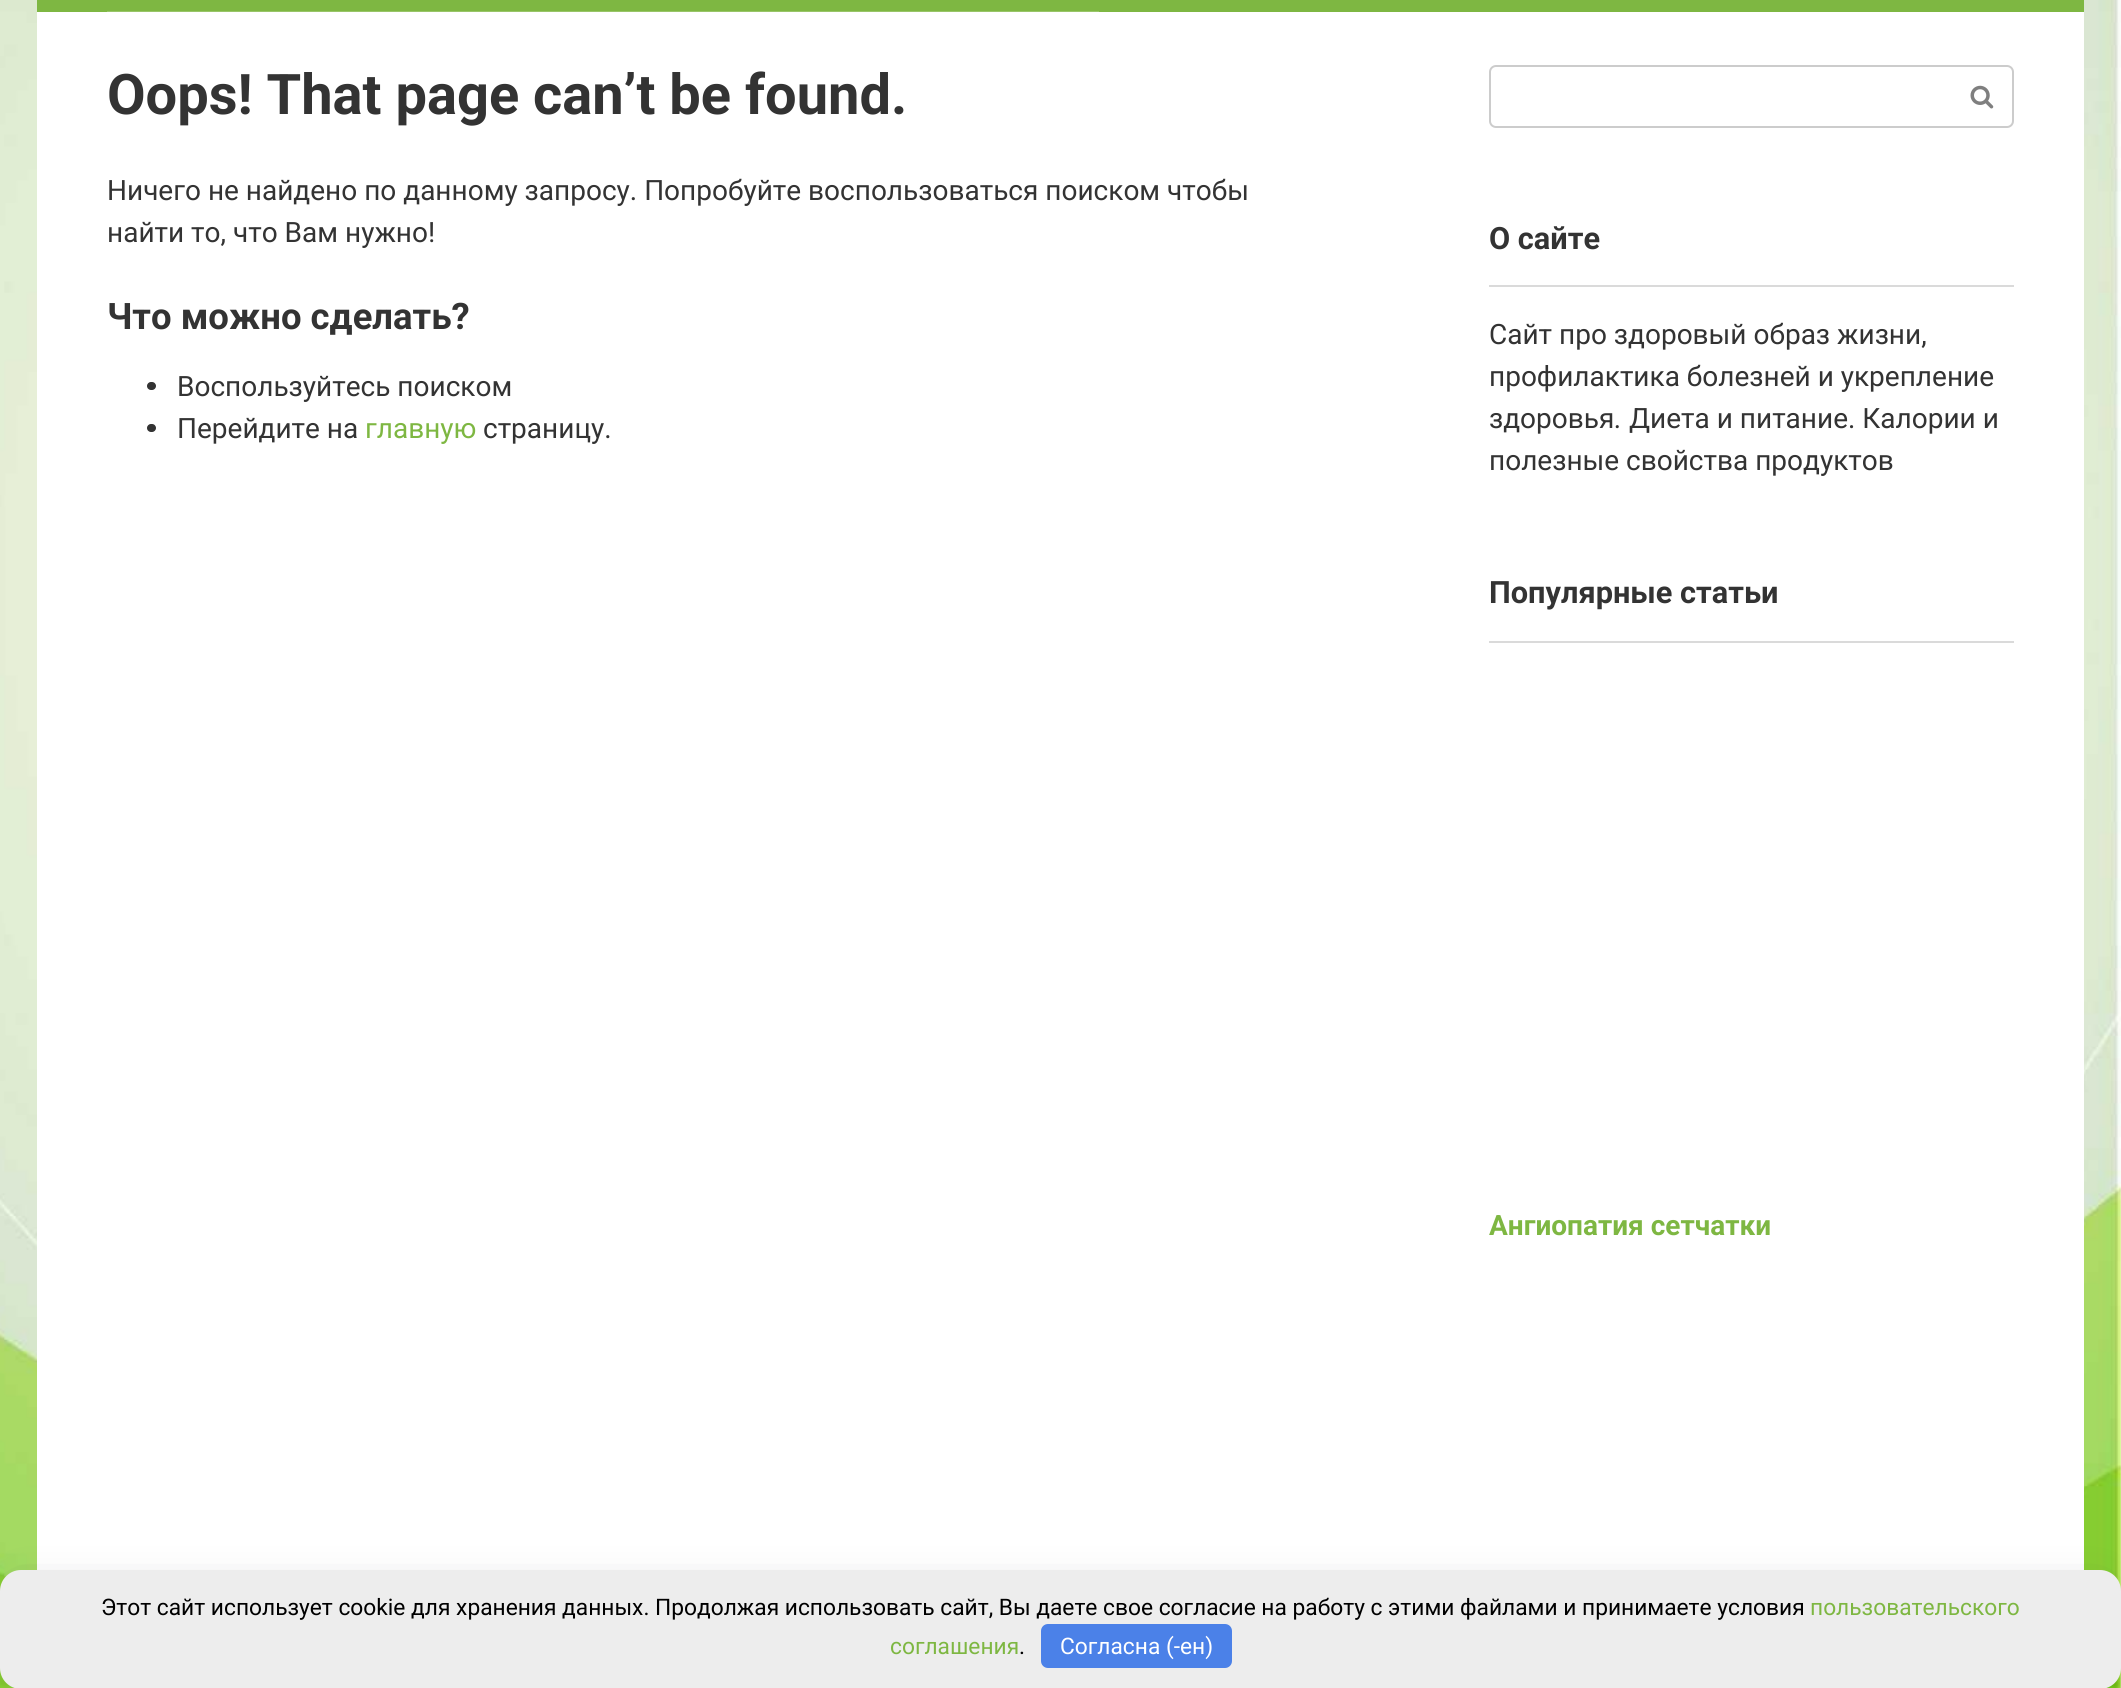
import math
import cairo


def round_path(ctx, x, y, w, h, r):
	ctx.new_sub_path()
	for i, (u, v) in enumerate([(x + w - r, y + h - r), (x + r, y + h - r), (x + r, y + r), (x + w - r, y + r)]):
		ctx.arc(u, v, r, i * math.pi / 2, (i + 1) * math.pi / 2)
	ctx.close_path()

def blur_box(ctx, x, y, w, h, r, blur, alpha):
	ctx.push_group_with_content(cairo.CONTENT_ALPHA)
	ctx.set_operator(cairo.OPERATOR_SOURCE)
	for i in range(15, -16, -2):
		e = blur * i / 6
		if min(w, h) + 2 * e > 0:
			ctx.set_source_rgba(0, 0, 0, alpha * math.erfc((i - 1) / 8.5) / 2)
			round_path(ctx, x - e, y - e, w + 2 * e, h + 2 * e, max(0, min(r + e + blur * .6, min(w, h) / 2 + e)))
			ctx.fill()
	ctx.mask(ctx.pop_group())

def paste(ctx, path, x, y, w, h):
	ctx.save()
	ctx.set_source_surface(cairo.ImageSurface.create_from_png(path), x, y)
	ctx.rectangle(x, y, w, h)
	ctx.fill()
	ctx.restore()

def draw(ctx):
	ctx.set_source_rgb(1, 1, 1)
	ctx.paint()
	paste(ctx, 'media/1.png', 0, 0, 2121, 1688)
	ctx.set_source_rgb(0.494, 0.718, 0.259)
	ctx.rectangle(37, 0, 2047, 12)
	ctx.fill()
	ctx.set_source_rgba(1, 1, 1, 0.2)
	ctx.rectangle(107, 11, 310, 1)
	ctx.fill()
	ctx.rectangle(417, 11, 182, 1)
	ctx.fill()
	ctx.rectangle(599, 11, 157, 1)
	ctx.fill()
	ctx.rectangle(756, 11, 182, 1)
	ctx.fill()
	ctx.rectangle(938, 11, 161, 1)
	ctx.fill()
	ctx.set_source_rgb(1, 1, 1)
	ctx.rectangle(37, 12, 2047, 1558)
	ctx.fill()
	ctx.select_font_face('Roboto', cairo.FONT_SLANT_NORMAL, cairo.FONT_WEIGHT_BOLD)
	ctx.set_font_size(56)
	ctx.set_source_rgb(0.2, 0.2, 0.2)
	ctx.move_to(107, 114)
	ctx.show_text('Oops! That page can’t be found.')
	ctx.select_font_face('Roboto')
	ctx.set_font_size(28)
	ctx.move_to(107, 200)
	ctx.show_text('Ничего не найдено по данному запросу. Попробуйте воспользоваться поиском чтобы')
	ctx.move_to(107, 242)
	ctx.show_text('найти то, что Вам нужно!')
	ctx.select_font_face('Roboto', cairo.FONT_SLANT_NORMAL, cairo.FONT_WEIGHT_BOLD)
	ctx.set_font_size(36.5)
	ctx.move_to(107, 329)
	ctx.show_text('Что можно сделать?')
	round_path(ctx, 147, 382, 9, 8, 4)
	ctx.fill()
	ctx.select_font_face('Roboto')
	ctx.set_font_size(28)
	ctx.move_to(177, 396)
	ctx.show_text('Воспользуйтесь поиском')
	round_path(ctx, 147, 424, 9, 8, 4)
	ctx.fill()
	ctx.move_to(177, 438)
	ctx.show_text('Перейдите на')
	ctx.set_source_rgb(0.494, 0.718, 0.259)
	ctx.move_to(365, 438)
	ctx.show_text('главную')
	ctx.set_source_rgb(0.2, 0.2, 0.2)
	ctx.move_to(483, 438)
	ctx.show_text('страницу.')
	round_path(ctx, 1490, 66, 523, 61, 6)
	ctx.set_source_rgb(0.8, 0.8, 0.8)
	ctx.stroke()
	paste(ctx, 'media/2.png', 1970, 85, 24, 24)
	ctx.set_source_rgb(0.855, 0.855, 0.855)
	ctx.rectangle(1489, 285, 525, 2)
	ctx.fill()
	ctx.select_font_face('Roboto', cairo.FONT_SLANT_NORMAL, cairo.FONT_WEIGHT_BOLD)
	ctx.set_font_size(30.75)
	ctx.set_source_rgb(0.2, 0.2, 0.2)
	ctx.move_to(1489, 249)
	ctx.show_text('О сайте')
	ctx.select_font_face('Roboto')
	ctx.set_font_size(28)
	for x, y, s in [
		(1489, 344, 'Сайт про здоровый образ жизни,'),
		(1489, 386, 'профилактика болезней и укрепление'),
		(1489, 428, 'здоровья'),
	]:
		ctx.move_to(x, y)
		ctx.show_text(s)
	ctx.select_font_face('Roboto', cairo.FONT_SLANT_ITALIC)
	ctx.move_to(1615, 428)
	ctx.show_text('.')
	ctx.select_font_face('Roboto')
	ctx.move_to(1629, 428)
	ctx.show_text('Диета и питание. Калории и')
	ctx.move_to(1489, 470)
	ctx.show_text('полезные свойства продуктов')
	ctx.set_source_rgb(0.855, 0.855, 0.855)
	ctx.rectangle(1489, 641, 525, 2)
	ctx.fill()
	ctx.select_font_face('Roboto', cairo.FONT_SLANT_NORMAL, cairo.FONT_WEIGHT_BOLD)
	ctx.set_font_size(30.75)
	ctx.set_source_rgb(0.2, 0.2, 0.2)
	ctx.move_to(1489, 603)
	ctx.show_text('Популярные статьи')
	ctx.set_font_size(28)
	ctx.set_source_rgb(0.494, 0.718, 0.259)
	ctx.move_to(1489, 1235)
	ctx.show_text('Ангиопатия сетчатки')
	ctx.set_source_rgb(0.161, 0.173, 0.22)
	blur_box(ctx, 9, 1584, 2103, 101, 12, 17.5, 0.2)
	ctx.set_source_rgb(0.929, 0.929, 0.929)
	round_path(ctx, 0, 1570, 2121, 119, 21)
	ctx.fill()
	ctx.select_font_face('Roboto')
	ctx.set_font_size(22.75)
	ctx.set_source_rgb(0, 0, 0)
	ctx.move_to(101, 1615)
	ctx.show_text('Этот сайт использует cookie для хранения данных. Продолжая использовать сайт, Вы даете свое согласие на работу с этими файлами и принимаете условия')
	ctx.set_source_rgb(0.494, 0.718, 0.259)
	ctx.move_to(1810, 1615)
	ctx.show_text('пользовательского')
	ctx.move_to(890, 1654)
	ctx.show_text('соглашения')
	ctx.set_source_rgb(0, 0, 0)
	ctx.move_to(1019, 1654)
	ctx.show_text('.')
	ctx.set_source_rgb(0.294, 0.506, 0.91)
	round_path(ctx, 1041, 1624, 191, 44, 7)
	ctx.fill()
	ctx.set_source_rgb(1, 1, 1)
	ctx.move_to(1060, 1654)
	ctx.show_text('Согласна (-ен)')


surface = cairo.ImageSurface(cairo.FORMAT_RGB24, 2121, 1688)
ctx = cairo.Context(surface)
options = cairo.FontOptions()
options.set_hint_metrics(cairo.HINT_METRICS_OFF)
options.set_hint_style(cairo.HINT_STYLE_NONE)
ctx.set_font_options(options)
ctx.set_miter_limit(4)
draw(ctx)
surface.write_to_png('image.png')
